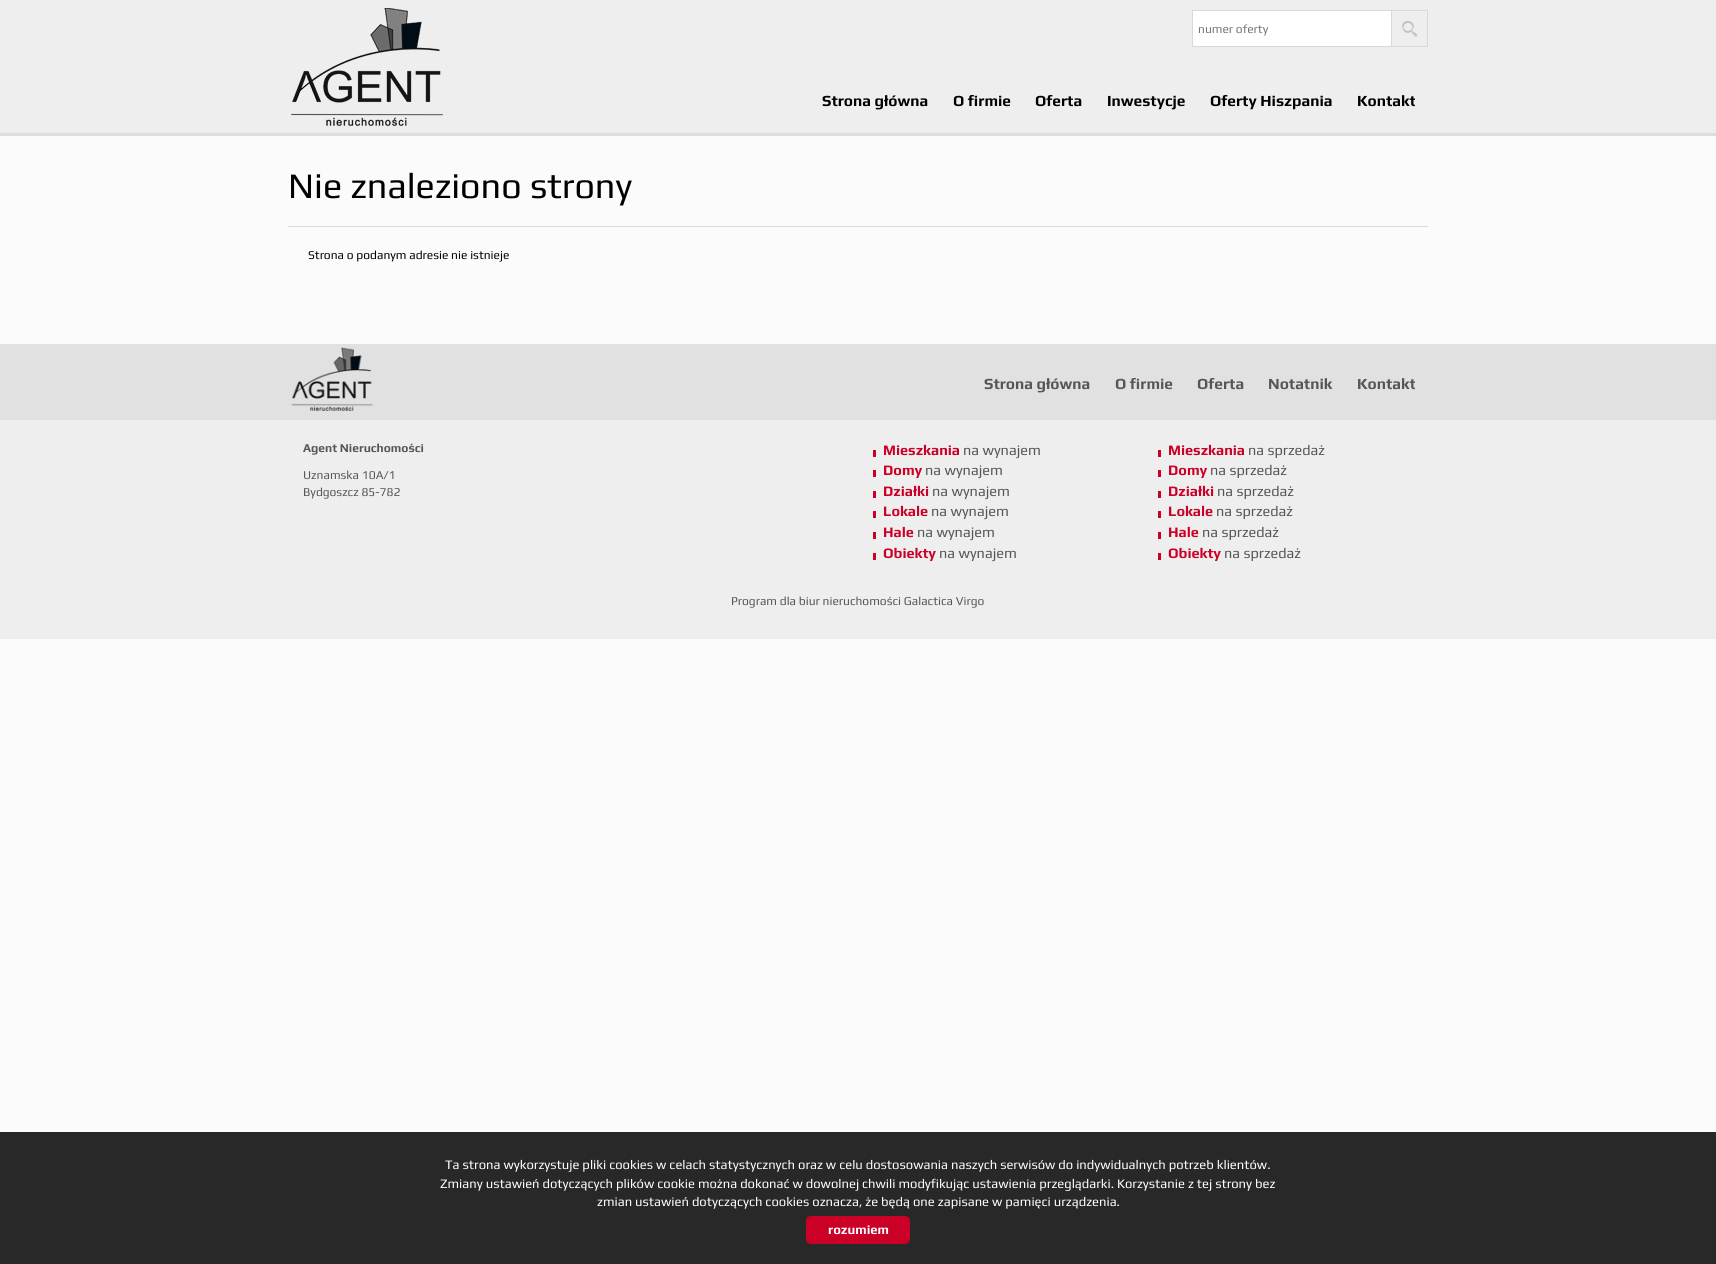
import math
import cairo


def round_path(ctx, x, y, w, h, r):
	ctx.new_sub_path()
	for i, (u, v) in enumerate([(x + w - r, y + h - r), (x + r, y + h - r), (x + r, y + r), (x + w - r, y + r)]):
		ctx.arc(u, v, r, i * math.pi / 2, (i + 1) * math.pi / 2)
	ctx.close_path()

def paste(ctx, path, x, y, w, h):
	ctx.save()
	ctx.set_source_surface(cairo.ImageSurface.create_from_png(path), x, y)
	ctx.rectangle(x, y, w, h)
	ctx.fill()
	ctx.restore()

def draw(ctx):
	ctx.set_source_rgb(0.984, 0.984, 0.984)
	ctx.paint()
	ctx.set_source_rgb(0.933, 0.933, 0.933)
	ctx.rectangle(0, 0, 1716, 133)
	ctx.fill()
	ctx.set_source_rgb(0.867, 0.867, 0.867)
	ctx.rectangle(0, 133, 1716, 3)
	ctx.fill()
	paste(ctx, 'media/1.png', 291, 8, 152, 118)
	paste(ctx, 'media/2.png', 1402, 21, 16, 16)
	ctx.rectangle(1391.5, 10.5, 36, 36)
	ctx.set_source_rgb(0.851, 0.851, 0.851)
	ctx.set_line_width(1)
	ctx.stroke()
	ctx.set_source_rgb(1, 1, 1)
	ctx.rectangle(1192.5, 10.5, 199, 36)
	ctx.fill_preserve()
	ctx.set_source_rgb(0.851, 0.851, 0.851)
	ctx.stroke()
	ctx.select_font_face('Play')
	ctx.set_font_size(12)
	ctx.set_source_rgb(0.459, 0.459, 0.459)
	ctx.move_to(1198, 33)
	ctx.show_text('numer oferty')
	ctx.select_font_face('Play', cairo.FONT_SLANT_NORMAL, cairo.FONT_WEIGHT_BOLD)
	ctx.set_font_size(15.5)
	ctx.set_source_rgb(0, 0, 0)
	for x, y, s in [
		(822, 106, 'Strona główna'),
		(953, 106, 'O firmie'),
		(1035, 106, 'Oferta'),
		(1107, 106, 'Inwestycje'),
		(1210, 106, 'Oferty Hiszpania'),
		(1357, 106, 'Kontakt'),
	]:
		ctx.move_to(x, y)
		ctx.show_text(s)
	ctx.set_source_rgb(0.851, 0.851, 0.851)
	ctx.rectangle(288, 226, 1140, 1)
	ctx.fill()
	ctx.select_font_face('Play')
	ctx.set_font_size(36)
	ctx.set_source_rgb(0, 0, 0)
	ctx.move_to(288, 198)
	ctx.show_text('Nie znaleziono strony')
	ctx.set_font_size(12)
	ctx.move_to(308, 259)
	ctx.show_text('Strona o podanym adresie nie istnieje')
	ctx.set_source_rgb(0.882, 0.882, 0.882)
	ctx.rectangle(0, 344, 1716, 76)
	ctx.fill()
	paste(ctx, 'media/3.png', 291, 347, 82, 64)
	ctx.select_font_face('Play', cairo.FONT_SLANT_NORMAL, cairo.FONT_WEIGHT_BOLD)
	ctx.set_font_size(15.5)
	ctx.set_source_rgb(0.337, 0.337, 0.337)
	for x, y, s in [
		(984, 389, 'Strona główna'),
		(1115, 389, 'O firmie'),
		(1197, 389, 'Oferta'),
		(1268, 389, 'Notatnik'),
		(1357, 389, 'Kontakt'),
	]:
		ctx.move_to(x, y)
		ctx.show_text(s)
	ctx.set_source_rgb(0.933, 0.933, 0.933)
	ctx.rectangle(0, 420, 1716, 219)
	ctx.fill()
	ctx.set_font_size(12)
	ctx.set_source_rgb(0.337, 0.337, 0.337)
	ctx.move_to(303, 452)
	ctx.show_text('Agent Nieruchomości')
	ctx.select_font_face('Play')
	ctx.move_to(303, 479)
	ctx.show_text('Uznamska 10A/1')
	ctx.move_to(303, 496)
	ctx.show_text('Bydgoszcz 85-782')
	ctx.set_source_rgb(0.796, 0, 0.149)
	ctx.rectangle(873, 450, 3, 7)
	ctx.fill()
	ctx.select_font_face('Play', cairo.FONT_SLANT_NORMAL, cairo.FONT_WEIGHT_BOLD)
	ctx.set_font_size(14.5)
	ctx.move_to(883, 455)
	ctx.show_text('Mieszkania')
	ctx.select_font_face('Play')
	ctx.set_source_rgb(0.337, 0.337, 0.337)
	ctx.move_to(963, 455)
	ctx.show_text('na wynajem')
	ctx.set_source_rgb(0.796, 0, 0.149)
	ctx.rectangle(873, 470, 3, 7)
	ctx.fill()
	ctx.select_font_face('Play', cairo.FONT_SLANT_NORMAL, cairo.FONT_WEIGHT_BOLD)
	ctx.move_to(883, 475)
	ctx.show_text('Domy')
	ctx.select_font_face('Play')
	ctx.set_source_rgb(0.337, 0.337, 0.337)
	ctx.move_to(925, 475)
	ctx.show_text('na wynajem')
	ctx.set_source_rgb(0.796, 0, 0.149)
	ctx.rectangle(873, 491, 3, 7)
	ctx.fill()
	ctx.select_font_face('Play', cairo.FONT_SLANT_NORMAL, cairo.FONT_WEIGHT_BOLD)
	ctx.move_to(883, 496)
	ctx.show_text('Działki')
	ctx.select_font_face('Play')
	ctx.set_source_rgb(0.337, 0.337, 0.337)
	ctx.move_to(932, 496)
	ctx.show_text('na wynajem')
	ctx.set_source_rgb(0.796, 0, 0.149)
	ctx.rectangle(873, 511, 3, 7)
	ctx.fill()
	ctx.select_font_face('Play', cairo.FONT_SLANT_NORMAL, cairo.FONT_WEIGHT_BOLD)
	ctx.move_to(883, 516)
	ctx.show_text('Lokale')
	ctx.select_font_face('Play')
	ctx.set_source_rgb(0.337, 0.337, 0.337)
	ctx.move_to(931, 516)
	ctx.show_text('na wynajem')
	ctx.set_source_rgb(0.796, 0, 0.149)
	ctx.rectangle(873, 532, 3, 7)
	ctx.fill()
	ctx.select_font_face('Play', cairo.FONT_SLANT_NORMAL, cairo.FONT_WEIGHT_BOLD)
	ctx.move_to(883, 537)
	ctx.show_text('Hale')
	ctx.select_font_face('Play')
	ctx.set_source_rgb(0.337, 0.337, 0.337)
	ctx.move_to(917, 537)
	ctx.show_text('na wynajem')
	ctx.set_source_rgb(0.796, 0, 0.149)
	ctx.rectangle(873, 553, 3, 7)
	ctx.fill()
	ctx.select_font_face('Play', cairo.FONT_SLANT_NORMAL, cairo.FONT_WEIGHT_BOLD)
	ctx.move_to(883, 558)
	ctx.show_text('Obiekty')
	ctx.select_font_face('Play')
	ctx.set_source_rgb(0.337, 0.337, 0.337)
	ctx.move_to(939, 558)
	ctx.show_text('na wynajem')
	ctx.set_source_rgb(0.796, 0, 0.149)
	ctx.rectangle(1158, 450, 3, 7)
	ctx.fill()
	ctx.select_font_face('Play', cairo.FONT_SLANT_NORMAL, cairo.FONT_WEIGHT_BOLD)
	ctx.move_to(1168, 455)
	ctx.show_text('Mieszkania')
	ctx.select_font_face('Play')
	ctx.set_source_rgb(0.337, 0.337, 0.337)
	ctx.move_to(1248, 455)
	ctx.show_text('na sprzedaż')
	ctx.set_source_rgb(0.796, 0, 0.149)
	ctx.rectangle(1158, 470, 3, 7)
	ctx.fill()
	ctx.select_font_face('Play', cairo.FONT_SLANT_NORMAL, cairo.FONT_WEIGHT_BOLD)
	ctx.move_to(1168, 475)
	ctx.show_text('Domy')
	ctx.select_font_face('Play')
	ctx.set_source_rgb(0.337, 0.337, 0.337)
	ctx.move_to(1210, 475)
	ctx.show_text('na sprzedaż')
	ctx.set_source_rgb(0.796, 0, 0.149)
	ctx.rectangle(1158, 491, 3, 7)
	ctx.fill()
	ctx.select_font_face('Play', cairo.FONT_SLANT_NORMAL, cairo.FONT_WEIGHT_BOLD)
	ctx.move_to(1168, 496)
	ctx.show_text('Działki')
	ctx.select_font_face('Play')
	ctx.set_source_rgb(0.337, 0.337, 0.337)
	ctx.move_to(1217, 496)
	ctx.show_text('na sprzedaż')
	ctx.set_source_rgb(0.796, 0, 0.149)
	ctx.rectangle(1158, 511, 3, 7)
	ctx.fill()
	ctx.select_font_face('Play', cairo.FONT_SLANT_NORMAL, cairo.FONT_WEIGHT_BOLD)
	ctx.move_to(1168, 516)
	ctx.show_text('Lokale')
	ctx.select_font_face('Play')
	ctx.set_source_rgb(0.337, 0.337, 0.337)
	ctx.move_to(1216, 516)
	ctx.show_text('na sprzedaż')
	ctx.set_source_rgb(0.796, 0, 0.149)
	ctx.rectangle(1158, 532, 3, 7)
	ctx.fill()
	ctx.select_font_face('Play', cairo.FONT_SLANT_NORMAL, cairo.FONT_WEIGHT_BOLD)
	ctx.move_to(1168, 537)
	ctx.show_text('Hale')
	ctx.select_font_face('Play')
	ctx.set_source_rgb(0.337, 0.337, 0.337)
	ctx.move_to(1202, 537)
	ctx.show_text('na sprzedaż')
	ctx.set_source_rgb(0.796, 0, 0.149)
	ctx.rectangle(1158, 553, 3, 7)
	ctx.fill()
	ctx.select_font_face('Play', cairo.FONT_SLANT_NORMAL, cairo.FONT_WEIGHT_BOLD)
	ctx.move_to(1168, 558)
	ctx.show_text('Obiekty')
	ctx.select_font_face('Play')
	ctx.set_source_rgb(0.337, 0.337, 0.337)
	ctx.move_to(1224, 558)
	ctx.show_text('na sprzedaż')
	ctx.set_font_size(12)
	ctx.move_to(731, 605)
	ctx.show_text('Program dla biur nieruchomości Galactica Virgo')
	ctx.set_source_rgb(0.157, 0.157, 0.157)
	ctx.rectangle(0, 1132, 1716, 132)
	ctx.fill()
	ctx.set_font_size(13)
	ctx.set_source_rgb(1, 1, 1)
	for x, y, s in [
		(445, 1169, 'Ta strona wykorzystuje pliki cookies w celach statystycznych oraz w celu dostosowania naszych serwisów do indywidualnych potrzeb klientów.'),
		(440, 1188, 'Zmiany ustawień dotyczących plików cookie można dokonać w dowolnej chwili modyfikując ustawienia przeglądarki. Korzystanie z tej strony bez'),
		(597, 1206, 'zmian ustawień dotyczących cookies oznacza, że będą one zapisane w pamięci urządzenia.'),
	]:
		ctx.move_to(x, y)
		ctx.show_text(s)
	ctx.set_source_rgb(0.796, 0, 0.149)
	round_path(ctx, 806, 1216, 104, 28, 5)
	ctx.fill()
	ctx.select_font_face('Play', cairo.FONT_SLANT_NORMAL, cairo.FONT_WEIGHT_BOLD)
	ctx.set_source_rgb(1, 1, 1)
	ctx.move_to(828, 1234)
	ctx.show_text('rozumiem')


surface = cairo.ImageSurface(cairo.FORMAT_RGB24, 1716, 1264)
ctx = cairo.Context(surface)
options = cairo.FontOptions()
options.set_hint_metrics(cairo.HINT_METRICS_OFF)
options.set_hint_style(cairo.HINT_STYLE_NONE)
ctx.set_font_options(options)
ctx.set_miter_limit(4)
draw(ctx)
surface.write_to_png('image.png')
